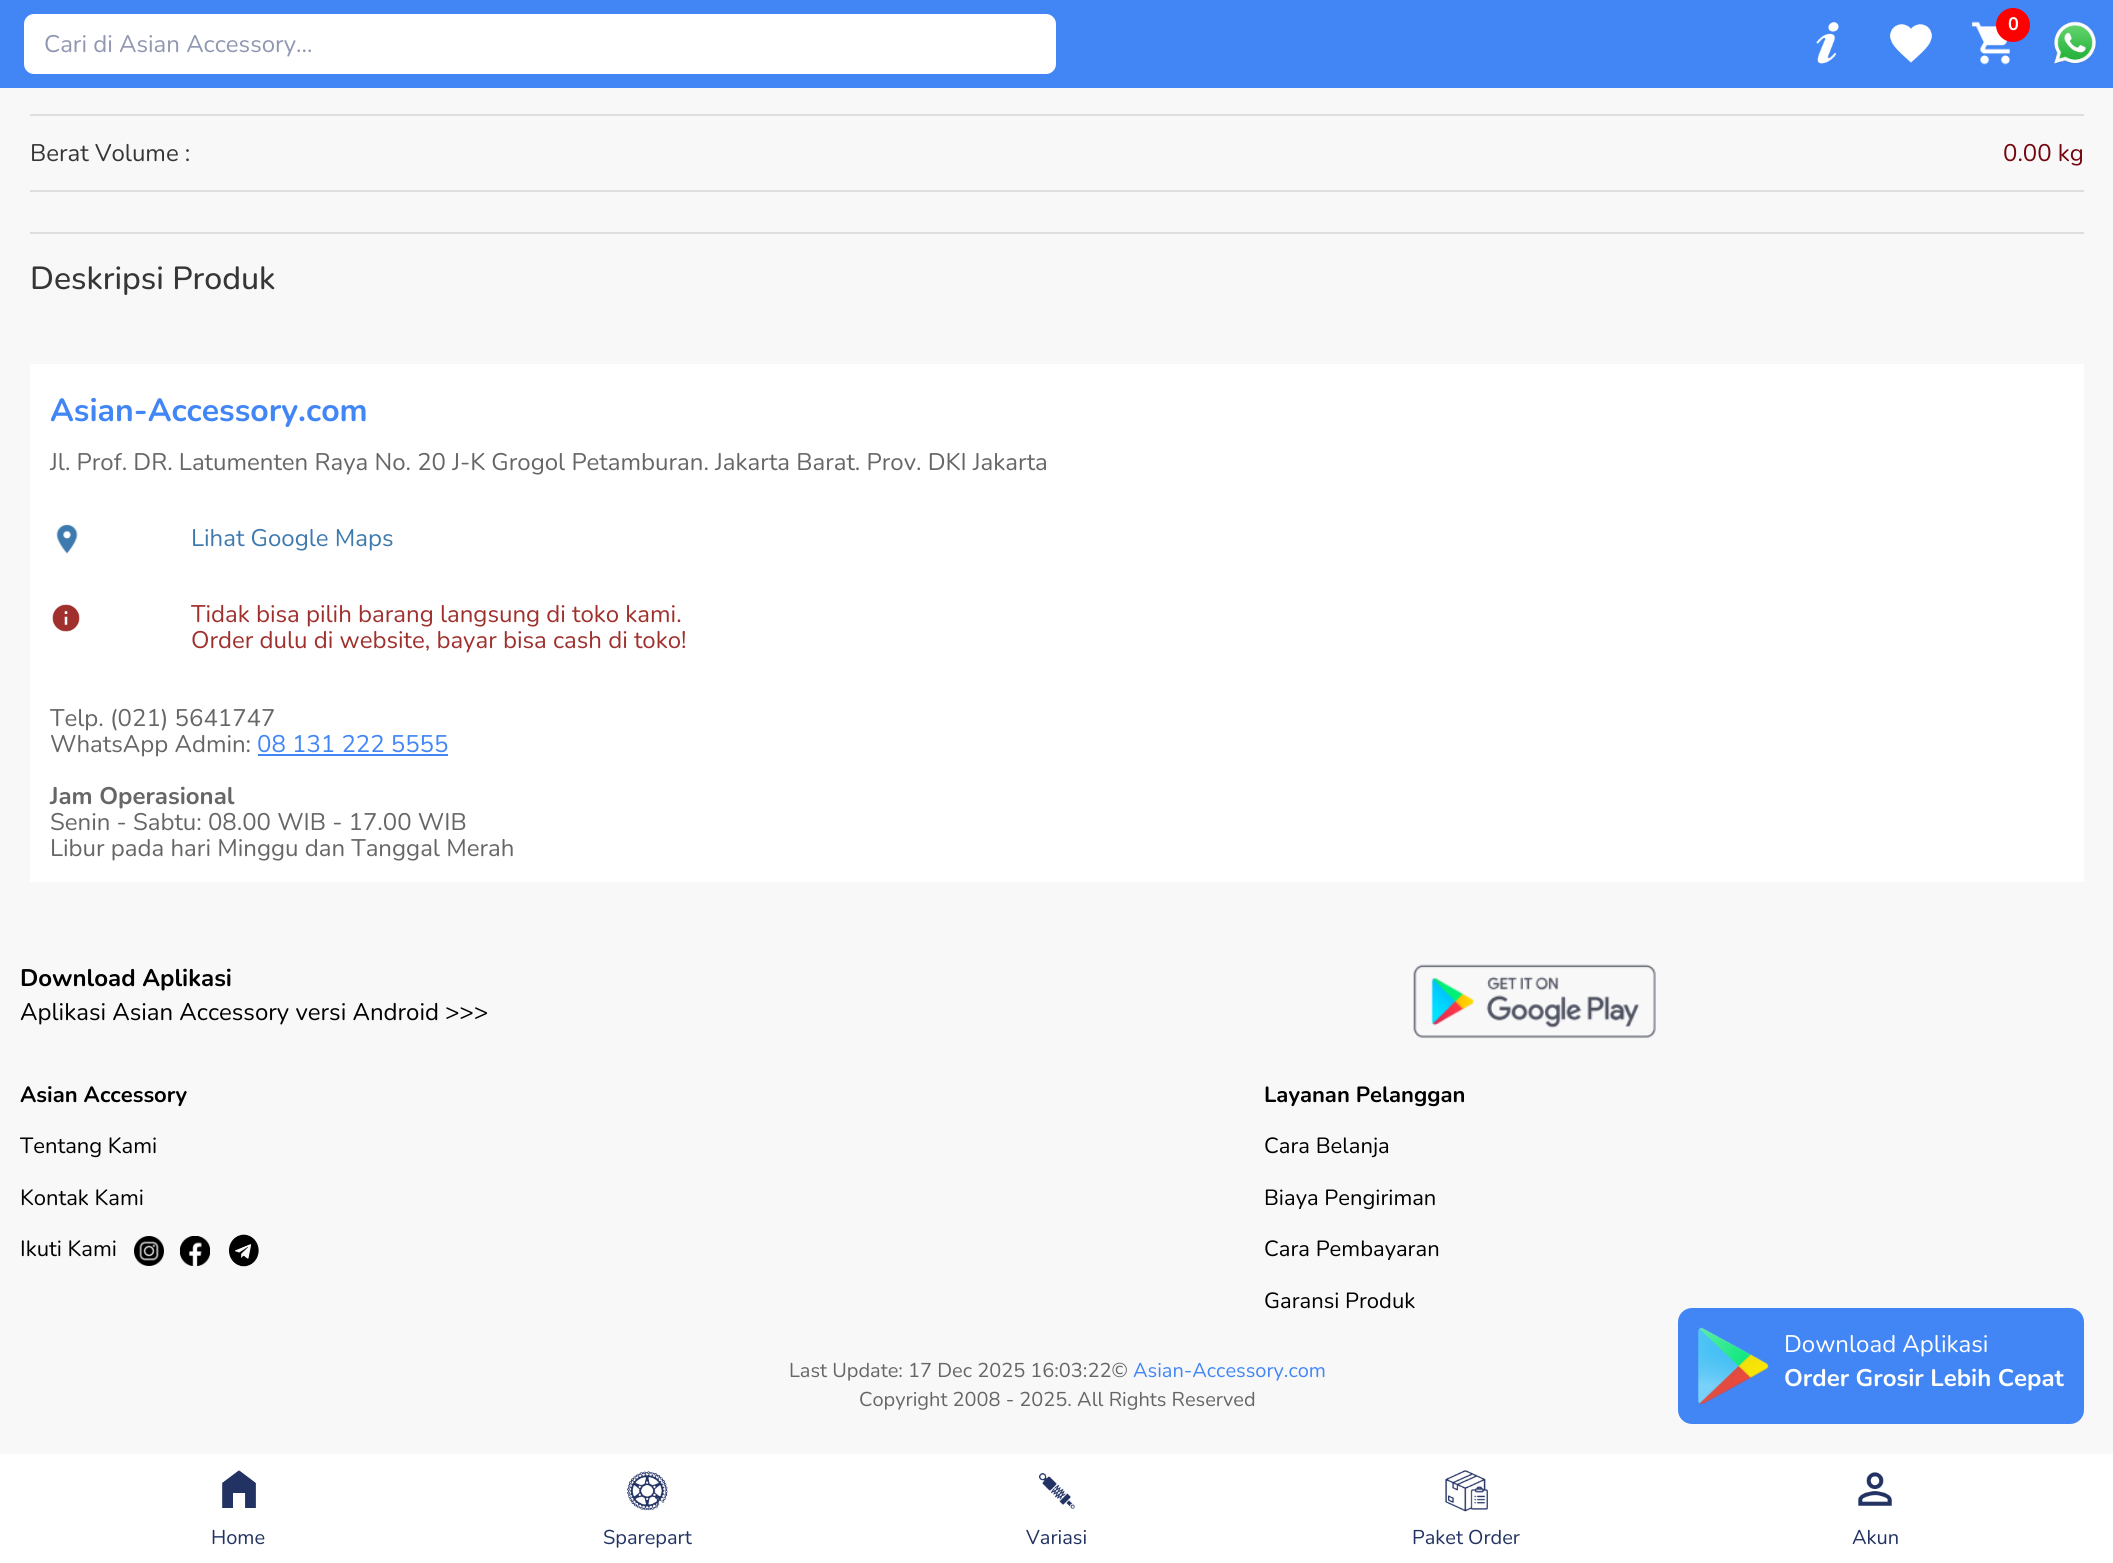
import math
import cairo


def round_path(ctx, x, y, w, h, r):
	ctx.new_sub_path()
	for i, (u, v) in enumerate([(x + w - r, y + h - r), (x + r, y + h - r), (x + r, y + r), (x + w - r, y + r)]):
		ctx.arc(u, v, r, i * math.pi / 2, (i + 1) * math.pi / 2)
	ctx.close_path()

def paste(ctx, path, x, y, w, h):
	ctx.save()
	ctx.set_source_surface(cairo.ImageSurface.create_from_png(path), x, y)
	ctx.rectangle(x, y, w, h)
	ctx.fill()
	ctx.restore()

def draw(ctx):
	ctx.set_source_rgb(0.969, 0.969, 0.969)
	ctx.paint()
	ctx.set_source_rgb(0.259, 0.525, 0.961)
	ctx.rectangle(0, 0, 2113, 88)
	ctx.fill()
	paste(ctx, 'media/1.png', 1816, 22, 23, 42)
	paste(ctx, 'media/2.png', 1890, 24, 42, 39)
	paste(ctx, 'media/3.png', 1971, 21, 39, 44)
	ctx.set_source_rgb(1, 0, 0)
	ctx.arc(2013, 25, 17, 0, 2 * math.pi)
	ctx.fill()
	ctx.select_font_face('Nunito', cairo.FONT_SLANT_NORMAL, cairo.FONT_WEIGHT_BOLD)
	ctx.set_font_size(18)
	ctx.set_source_rgb(1, 1, 1)
	ctx.move_to(2008, 30)
	ctx.show_text('0')
	paste(ctx, 'media/4.png', 2053, 21, 44, 43)
	round_path(ctx, 24, 14, 1032, 60, 10)
	ctx.fill()
	ctx.select_font_face('Nunito')
	ctx.set_font_size(24)
	ctx.set_source_rgb(0.565, 0.596, 0.694)
	ctx.move_to(44, 52)
	ctx.show_text('Cari di Asian Accessory...')
	ctx.set_source_rgb(0.871, 0.871, 0.871)
	ctx.rectangle(30, 114, 2054, 2)
	ctx.fill()
	ctx.set_source_rgb(0.212, 0.212, 0.212)
	ctx.move_to(30, 161)
	ctx.show_text('Berat Volume :')
	ctx.set_source_rgb(0.871, 0.871, 0.871)
	ctx.rectangle(30, 190, 2054, 2)
	ctx.fill()
	ctx.set_source_rgb(0.459, 0.024, 0.059)
	ctx.move_to(2003, 161)
	ctx.show_text('0.00 kg')
	ctx.set_source_rgb(0.871, 0.871, 0.871)
	ctx.rectangle(30, 232, 2054, 2)
	ctx.fill()
	ctx.select_font_face('Nunito Medium')
	ctx.set_font_size(32)
	ctx.set_source_rgb(0.212, 0.212, 0.212)
	ctx.move_to(30, 289)
	ctx.show_text('Deskripsi Produk')
	ctx.set_source_rgb(1, 1, 1)
	ctx.rectangle(30, 364, 2054, 518)
	ctx.fill()
	ctx.select_font_face('Nunito', cairo.FONT_SLANT_NORMAL, cairo.FONT_WEIGHT_BOLD)
	ctx.set_source_rgb(0.259, 0.525, 0.961)
	ctx.move_to(50, 421)
	ctx.show_text('Asian-Accessory.com')
	ctx.select_font_face('Nunito')
	ctx.set_font_size(24)
	ctx.set_source_rgb(0.4, 0.4, 0.4)
	ctx.move_to(50, 470)
	ctx.show_text('Jl. Prof. DR. Latumenten Raya No. 20 J-K Grogol Petamburan. Jakarta Barat. Prov. DKI Jakarta')
	paste(ctx, 'media/5.png', 56, 524, 22, 30)
	ctx.set_source_rgb(0.247, 0.478, 0.682)
	ctx.move_to(191, 546)
	ctx.show_text('Lihat Google Maps')
	paste(ctx, 'media/6.png', 52, 604, 28, 28)
	ctx.set_source_rgb(0.627, 0.188, 0.176)
	ctx.move_to(191, 622)
	ctx.show_text('Tidak bisa pilih barang langsung di toko kami.')
	ctx.move_to(191, 648)
	ctx.show_text('Order dulu di website, bayar bisa cash di toko!')
	ctx.set_source_rgb(0.4, 0.4, 0.4)
	ctx.move_to(50, 726)
	ctx.show_text('Telp. (021) 5641747')
	ctx.move_to(50, 752)
	ctx.show_text('WhatsApp Admin:')
	ctx.set_source_rgb(0.259, 0.525, 0.961)
	ctx.move_to(257, 752)
	ctx.show_text('08 131 222 5555')
	ctx.rectangle(258, 754, 190, 2)
	ctx.fill()
	ctx.select_font_face('Nunito', cairo.FONT_SLANT_NORMAL, cairo.FONT_WEIGHT_BOLD)
	ctx.set_source_rgb(0.4, 0.4, 0.4)
	ctx.move_to(50, 804)
	ctx.show_text('Jam Operasional')
	ctx.select_font_face('Nunito')
	ctx.move_to(50, 830)
	ctx.show_text('Senin - Sabtu: 08.00 WIB - 17.00 WIB')
	ctx.move_to(50, 856)
	ctx.show_text('Libur pada hari Minggu dan Tanggal Merah')
	ctx.select_font_face('Nunito', cairo.FONT_SLANT_NORMAL, cairo.FONT_WEIGHT_BOLD)
	ctx.set_source_rgb(0, 0, 0)
	ctx.move_to(20, 986)
	ctx.show_text('Download Aplikasi')
	ctx.select_font_face('Nunito')
	ctx.move_to(20, 1020)
	ctx.show_text('Aplikasi Asian Accessory versi Android >>>')
	paste(ctx, 'media/7.png', 1413, 964, 243, 75)
	ctx.select_font_face('Nunito', cairo.FONT_SLANT_NORMAL, cairo.FONT_WEIGHT_BOLD)
	ctx.set_font_size(22)
	ctx.move_to(20, 1102)
	ctx.show_text('Asian Accessory')
	ctx.select_font_face('Nunito')
	for x, y, s in [
		(20, 1153, 'Tentang Kami'),
		(20, 1205, 'Kontak Kami'),
		(20, 1256, 'Ikuti Kami'),
	]:
		ctx.move_to(x, y)
		ctx.show_text(s)
	paste(ctx, 'media/8.png', 134, 1236, 30, 30)
	paste(ctx, 'media/9.png', 180, 1236, 30, 30)
	paste(ctx, 'media/10.png', 229, 1234, 30, 33)
	ctx.select_font_face('Nunito', cairo.FONT_SLANT_NORMAL, cairo.FONT_WEIGHT_BOLD)
	ctx.move_to(1264, 1102)
	ctx.show_text('Layanan Pelanggan')
	ctx.select_font_face('Nunito')
	for x, y, s in [
		(1264, 1153, 'Cara Belanja'),
		(1264, 1205, 'Biaya Pengiriman'),
		(1264, 1256, 'Cara Pembayaran'),
		(1264, 1308, 'Garansi Produk'),
	]:
		ctx.move_to(x, y)
		ctx.show_text(s)
	ctx.set_font_size(20)
	ctx.set_source_rgb(0.4, 0.4, 0.4)
	ctx.move_to(789, 1377)
	ctx.show_text('Last Update: 17 Dec 2025 16:03:22©')
	ctx.set_source_rgb(0.259, 0.525, 0.961)
	ctx.move_to(1133, 1377)
	ctx.show_text('Asian-Accessory.com')
	ctx.set_source_rgb(0.4, 0.4, 0.4)
	ctx.move_to(859, 1406)
	ctx.show_text('Copyright 2008 - 2025. All Rights Reserved')
	ctx.set_source_rgb(0.259, 0.525, 0.961)
	round_path(ctx, 1678, 1308, 406, 116, 14)
	ctx.fill()
	paste(ctx, 'media/11.png', 1698, 1327, 71, 77)
	ctx.set_font_size(24)
	ctx.set_source_rgb(1, 1, 1)
	ctx.move_to(1784, 1352)
	ctx.show_text('Download Aplikasi')
	ctx.select_font_face('Nunito', cairo.FONT_SLANT_NORMAL, cairo.FONT_WEIGHT_BOLD)
	ctx.move_to(1784, 1386)
	ctx.show_text('Order Grosir Lebih Cepat')
	ctx.rectangle(0, 1454, 2113, 109)
	ctx.fill()
	paste(ctx, 'media/12.png', 222, 1470, 34, 38)
	ctx.select_font_face('Nunito')
	ctx.set_font_size(20)
	ctx.set_source_rgb(0.133, 0.196, 0.388)
	ctx.move_to(211, 1544)
	ctx.show_text('Home')
	paste(ctx, 'media/13.png', 627, 1471, 41, 40)
	ctx.move_to(603, 1544)
	ctx.show_text('Sparepart')
	paste(ctx, 'media/14.png', 1039, 1473, 36, 36)
	ctx.move_to(1026, 1544)
	ctx.show_text('Variasi')
	paste(ctx, 'media/15.png', 1445, 1470, 43, 42)
	ctx.move_to(1412, 1544)
	ctx.show_text('Paket Order')
	paste(ctx, 'media/16.png', 1858, 1472, 34, 34)
	ctx.move_to(1852, 1544)
	ctx.show_text('Akun')


surface = cairo.ImageSurface(cairo.FORMAT_RGB24, 2113, 1563)
ctx = cairo.Context(surface)
options = cairo.FontOptions()
options.set_hint_metrics(cairo.HINT_METRICS_OFF)
options.set_hint_style(cairo.HINT_STYLE_NONE)
ctx.set_font_options(options)
ctx.set_miter_limit(4)
draw(ctx)
surface.write_to_png('image.png')
